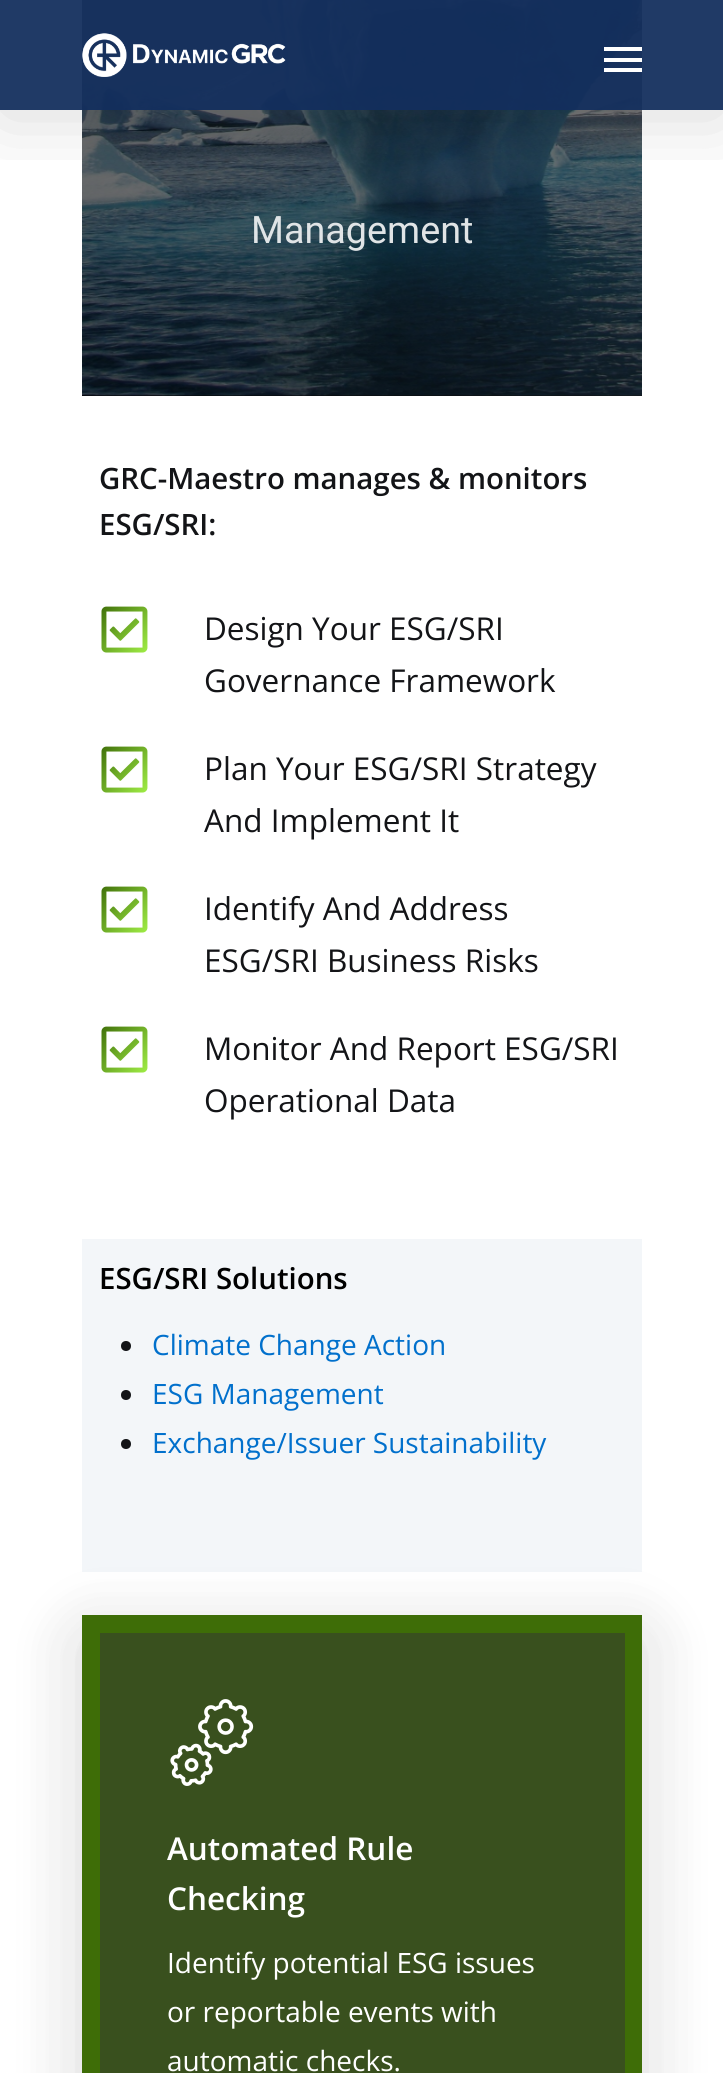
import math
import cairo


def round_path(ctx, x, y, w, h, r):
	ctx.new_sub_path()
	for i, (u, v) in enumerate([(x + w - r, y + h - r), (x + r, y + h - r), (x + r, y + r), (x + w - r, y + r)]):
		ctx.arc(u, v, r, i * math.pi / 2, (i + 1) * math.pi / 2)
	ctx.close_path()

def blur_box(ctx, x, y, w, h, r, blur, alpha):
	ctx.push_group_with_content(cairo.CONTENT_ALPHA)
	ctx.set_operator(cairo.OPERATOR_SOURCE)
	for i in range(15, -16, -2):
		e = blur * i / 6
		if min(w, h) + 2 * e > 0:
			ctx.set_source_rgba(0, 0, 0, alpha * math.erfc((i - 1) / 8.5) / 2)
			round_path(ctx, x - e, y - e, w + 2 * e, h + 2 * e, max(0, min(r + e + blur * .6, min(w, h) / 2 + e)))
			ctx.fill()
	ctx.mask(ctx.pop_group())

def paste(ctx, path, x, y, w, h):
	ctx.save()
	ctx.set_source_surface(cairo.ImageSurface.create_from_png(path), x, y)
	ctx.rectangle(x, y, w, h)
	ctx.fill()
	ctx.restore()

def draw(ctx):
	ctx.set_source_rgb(1, 1, 1)
	ctx.paint()
	gradient = cairo.LinearGradient(28, 341, 697, -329)
	gradient.add_color_stop_rgba(0, 0, 0, 0, 1)
	gradient.add_color_stop_rgba(1, 0.2, 0.2, 0.2, 1)
	ctx.set_source(gradient)
	ctx.rectangle(82, 0, 560, 396)
	ctx.fill()
	paste(ctx, 'media/2.png', 82, 0, 560, 396)
	ctx.save()
	ctx.rectangle(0, 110, 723, 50)
	ctx.clip()
	ctx.set_source_rgb(0, 0, 0)
	blur_box(ctx, 0, 5, 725, 111, 0, 39.5, 0.15)
	ctx.restore()
	ctx.set_source_rgba(0.071, 0.18, 0.365, 0.94)
	ctx.rectangle(0, 0, 723, 110)
	ctx.fill()
	paste(ctx, 'media/1.png', 82, 33, 204, 44)
	ctx.set_source_rgb(1, 1, 1)
	ctx.rectangle(604, 47, 38, 4)
	ctx.rectangle(604, 68, 38, 4)
	ctx.rectangle(604, 58, 38, 4)
	ctx.fill()
	ctx.select_font_face('Roboto')
	ctx.set_font_size(37.75)
	ctx.set_source_rgb(0.878, 0.894, 0.902)
	ctx.move_to(251, 243)
	ctx.show_text('Management')
	ctx.select_font_face('Open Sans SemiBold')
	ctx.set_font_size(29.4)
	ctx.set_source_rgb(0.075, 0.082, 0.09)
	ctx.move_to(99, 489)
	ctx.show_text('GRC-Maestro manages & monitors')
	ctx.move_to(99, 535)
	ctx.show_text('ESG/SRI:')
	paste(ctx, 'media/3.png', 101, 606, 47, 47)
	ctx.select_font_face('Open Sans')
	ctx.set_font_size(31.5)
	ctx.move_to(204, 640)
	ctx.show_text('Design Your ESG/SRI')
	ctx.move_to(204, 692)
	ctx.show_text('Governance Framework')
	paste(ctx, 'media/3.png', 101, 746, 47, 47)
	ctx.move_to(204, 780)
	ctx.show_text('Plan Your ESG/SRI Strategy')
	ctx.move_to(204, 832)
	ctx.show_text('And Implement It')
	paste(ctx, 'media/3.png', 101, 886, 47, 47)
	ctx.move_to(204, 920)
	ctx.show_text('Identify And Address')
	ctx.move_to(204, 972)
	ctx.show_text('ESG/SRI Business Risks')
	paste(ctx, 'media/3.png', 101, 1026, 47, 47)
	ctx.move_to(204, 1060)
	ctx.show_text('Monitor And Report ESG/SRI')
	ctx.move_to(204, 1112)
	ctx.show_text('Operational Data')
	ctx.set_source_rgb(0.953, 0.961, 0.973)
	ctx.rectangle(82, 1239, 560, 333)
	ctx.fill()
	ctx.select_font_face('Open Sans SemiBold')
	ctx.set_font_size(29.4)
	ctx.set_source_rgb(0, 0, 0)
	ctx.move_to(99, 1289)
	ctx.show_text('ESG/SRI Solutions')
	ctx.set_source_rgb(0.075, 0.082, 0.09)
	ctx.new_path()
	ctx.arc(126, 1346, 5, 0, 2 * math.pi)
	ctx.fill()
	ctx.select_font_face('Open Sans')
	ctx.set_font_size(28)
	ctx.set_source_rgb(0.004, 0.439, 0.8)
	ctx.move_to(152, 1355)
	ctx.show_text('Climate Change Action')
	ctx.set_source_rgb(0.075, 0.082, 0.09)
	ctx.new_path()
	ctx.arc(126, 1395, 5, 0, 2 * math.pi)
	ctx.fill()
	ctx.set_source_rgb(0.004, 0.439, 0.8)
	ctx.move_to(152, 1404)
	ctx.show_text('ESG Management')
	ctx.set_source_rgb(0.075, 0.082, 0.09)
	ctx.new_path()
	ctx.arc(126, 1444, 5, 0, 2 * math.pi)
	ctx.fill()
	ctx.set_source_rgb(0.004, 0.439, 0.8)
	ctx.move_to(152, 1453)
	ctx.show_text('Exchange/Issuer Sustainability')
	ctx.set_source_rgb(0, 0, 0)
	blur_box(ctx, 82, 1638, 560, 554, 0, 39.5, 0.08)
	blur_box(ctx, 82, 1633, 560, 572, 0, 44, 0.08)
	ctx.set_source_rgb(0.243, 0.427, 0.031)
	ctx.rectangle(82, 1615, 560, 458)
	ctx.fill()
	ctx.set_source_rgb(0.224, 0.314, 0.118)
	ctx.rectangle(100, 1633, 525, 440)
	ctx.fill()
	paste(ctx, 'media/4.png', 170, 1699, 84, 87)
	ctx.select_font_face('Open Sans SemiBold')
	ctx.set_font_size(31.5)
	ctx.set_source_rgb(1, 1, 1)
	ctx.move_to(167, 1860)
	ctx.show_text('Automated Rule')
	ctx.move_to(167, 1910)
	ctx.show_text('Checking')
	ctx.select_font_face('Open Sans')
	ctx.set_font_size(28)
	for x, y, s in [
		(167, 1973, 'Identify potential ESG issues'),
		(167, 2022, 'or reportable events with'),
		(167, 2071, 'automatic checks.'),
	]:
		ctx.move_to(x, y)
		ctx.show_text(s)


surface = cairo.ImageSurface(cairo.FORMAT_RGB24, 723, 2073)
ctx = cairo.Context(surface)
options = cairo.FontOptions()
options.set_hint_metrics(cairo.HINT_METRICS_OFF)
options.set_hint_style(cairo.HINT_STYLE_NONE)
ctx.set_font_options(options)
ctx.set_miter_limit(4)
draw(ctx)
surface.write_to_png('image.png')
